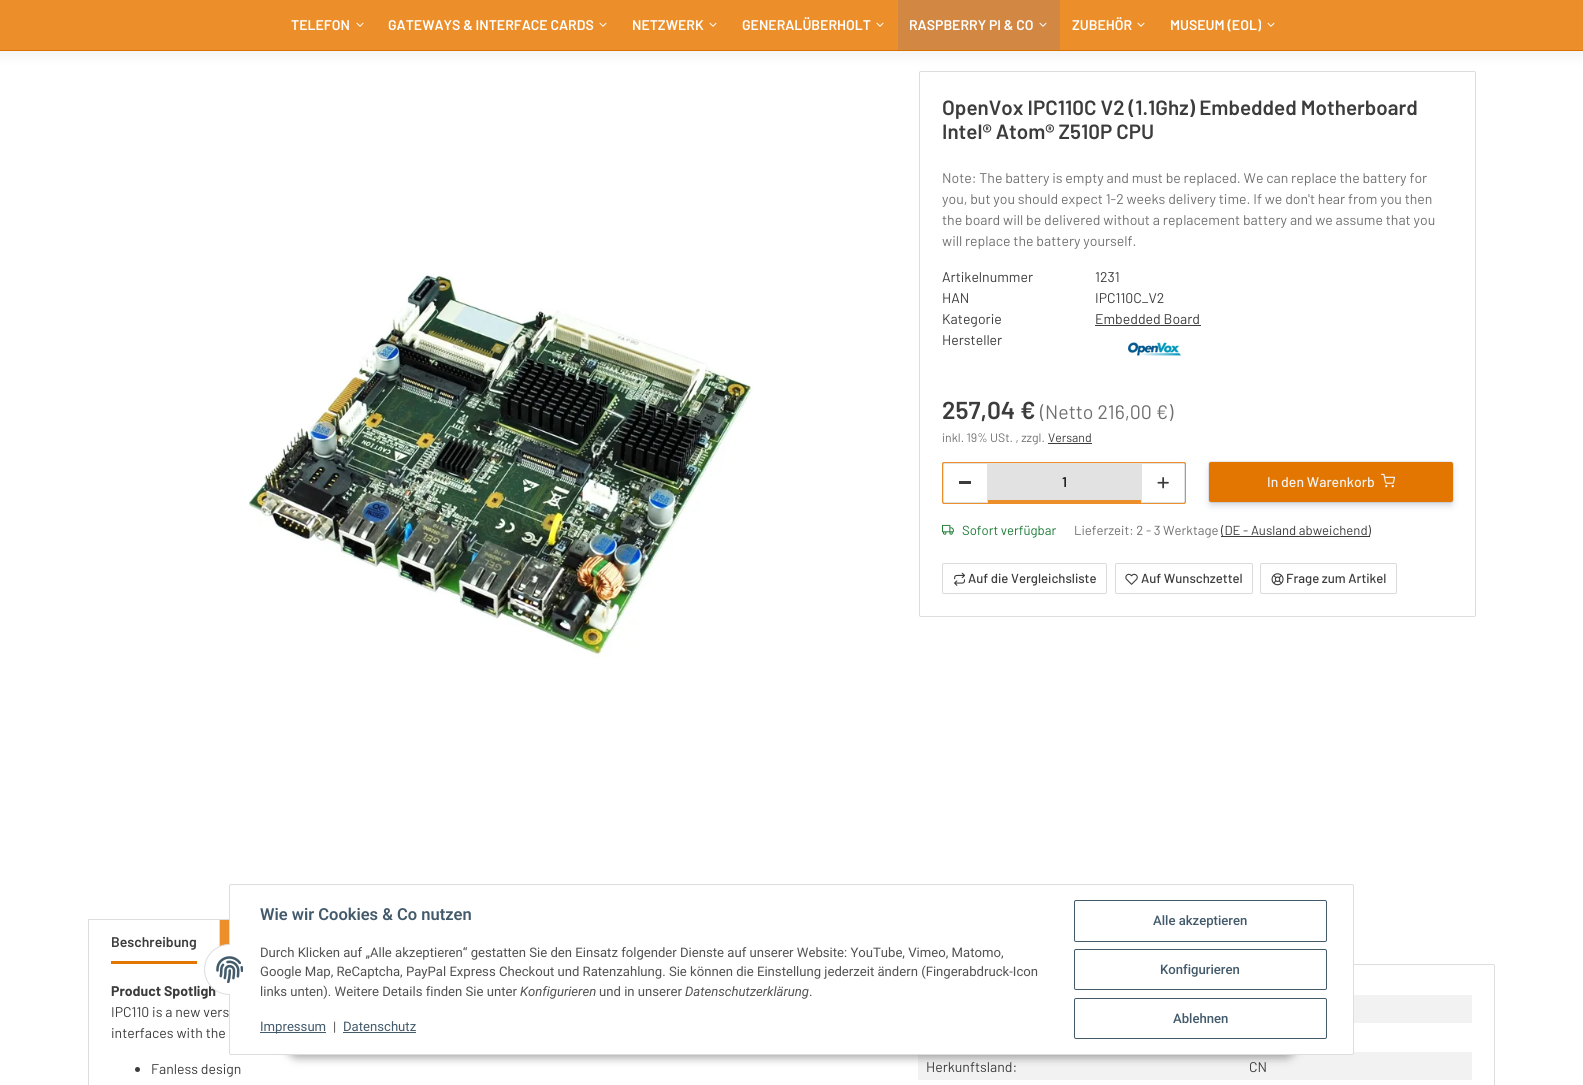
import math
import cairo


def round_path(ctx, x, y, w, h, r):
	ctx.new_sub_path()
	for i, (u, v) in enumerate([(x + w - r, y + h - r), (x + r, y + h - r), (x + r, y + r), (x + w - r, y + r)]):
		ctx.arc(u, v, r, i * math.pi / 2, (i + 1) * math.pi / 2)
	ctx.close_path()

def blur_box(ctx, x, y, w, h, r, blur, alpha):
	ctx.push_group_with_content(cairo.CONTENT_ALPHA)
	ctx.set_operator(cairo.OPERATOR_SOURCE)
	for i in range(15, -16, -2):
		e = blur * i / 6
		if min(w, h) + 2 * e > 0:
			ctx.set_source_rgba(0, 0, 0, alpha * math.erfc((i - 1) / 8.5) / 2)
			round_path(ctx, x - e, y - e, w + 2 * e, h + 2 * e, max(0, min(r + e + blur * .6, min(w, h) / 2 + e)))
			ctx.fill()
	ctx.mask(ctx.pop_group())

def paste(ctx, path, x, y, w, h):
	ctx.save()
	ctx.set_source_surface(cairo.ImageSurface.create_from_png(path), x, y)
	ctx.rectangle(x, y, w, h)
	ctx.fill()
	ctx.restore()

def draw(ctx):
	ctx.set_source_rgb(1, 1, 1)
	ctx.paint()
	round_path(ctx, 919.5, 71.5, 556, 545, 1.5)
	ctx.set_source_rgb(0.867, 0.867, 0.867)
	ctx.set_line_width(1)
	ctx.stroke()
	ctx.set_source_rgb(0.231, 0.235, 0.231)
	blur_box(ctx, -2, 0, 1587, 55, 0, 7.5, 0.08)
	ctx.set_source_rgb(0.851, 0.443, 0)
	ctx.rectangle(0, 50, 1583, 1)
	ctx.fill()
	ctx.set_source_rgb(0.922, 0.561, 0.169)
	ctx.rectangle(0, 0, 1583, 50)
	ctx.fill()
	ctx.select_font_face('Barlow SemiBold')
	ctx.set_font_size(14.05)
	ctx.set_source_rgb(1, 1, 1)
	ctx.move_to(291, 30)
	ctx.show_text('TELEFON')
	paste(ctx, 'media/1.png', 356, 22, 8, 5)
	ctx.move_to(388, 30)
	ctx.show_text('GATEWAYS & INTERFACE CARDS')
	paste(ctx, 'media/1.png', 599, 22, 8, 5)
	ctx.move_to(632, 30)
	ctx.show_text('NETZWERK')
	paste(ctx, 'media/1.png', 709, 22, 8, 5)
	ctx.move_to(742, 30)
	ctx.show_text('GENERALÜBERHOLT')
	paste(ctx, 'media/1.png', 876, 22, 8, 5)
	ctx.set_source_rgb(0.824, 0.529, 0.263)
	ctx.rectangle(898, 0, 162, 50)
	ctx.fill()
	ctx.set_source_rgb(1, 1, 1)
	ctx.move_to(909, 30)
	ctx.show_text('RASPBERRY PI & CO')
	paste(ctx, 'media/2.png', 1039, 22, 8, 5)
	ctx.move_to(1072, 30)
	ctx.show_text('ZUBEHÖR')
	paste(ctx, 'media/1.png', 1137, 22, 8, 5)
	ctx.save()
	ctx.rectangle(1170, 15, 91, 20)
	ctx.clip()
	ctx.move_to(1170, 30)
	ctx.show_text('MUSEUM (EOL)')
	ctx.restore()
	paste(ctx, 'media/1.png', 1267, 22, 8, 5)
	paste(ctx, 'media/3.png', 248, 273, 505, 385)
	ctx.set_font_size(20.6)
	ctx.set_source_rgb(0.231, 0.235, 0.231)
	ctx.move_to(942, 115)
	ctx.show_text('OpenVox IPC110C V2 (1.1Ghz) Embedded Motherboard')
	ctx.move_to(942, 139)
	ctx.show_text('Intel® Atom® Z510P CPU')
	ctx.select_font_face('Barlow')
	ctx.set_font_size(14.05)
	ctx.set_source_rgb(0.439, 0.439, 0.439)
	for x, y, s in [
		(942, 183, 'Note: The battery is empty and must be replaced. We can replace the battery for'),
		(942, 204, 'you, but you should expect 1-2 weeks delivery time. If we don\'t hear from you then'),
		(942, 225, 'the board will be delivered without a replacement battery and we assume that you'),
		(942, 246, 'will replace the battery yourself.'),
	]:
		ctx.move_to(x, y)
		ctx.show_text(s)
	ctx.set_source_rgb(0.231, 0.235, 0.231)
	for x, y, s in [
		(942, 282, 'Artikelnummer'),
		(1095, 282, '1231'),
		(942, 303, 'HAN'),
		(1095, 303, 'IPC110C_V2'),
		(942, 324, 'Kategorie'),
		(1095, 324, 'Embedded Board'),
	]:
		ctx.move_to(x, y)
		ctx.show_text(s)
	ctx.rectangle(1095, 325, 106, 1)
	ctx.fill()
	ctx.move_to(942, 345)
	ctx.show_text('Hersteller')
	paste(ctx, 'media/4.png', 1128, 342, 53, 14)
	ctx.select_font_face('Barlow SemiBold')
	ctx.set_font_size(24.5)
	ctx.move_to(942, 419)
	ctx.show_text('257,04 €')
	ctx.select_font_face('Barlow')
	ctx.set_font_size(19.5)
	ctx.set_source_rgb(0.439, 0.439, 0.439)
	ctx.move_to(1040, 419)
	ctx.show_text('(Netto 216,00 €)')
	ctx.set_font_size(12.25)
	ctx.move_to(942, 442)
	ctx.show_text('inkl. 19% USt. , zzgl.')
	ctx.set_source_rgb(0.231, 0.235, 0.231)
	ctx.move_to(1048, 442)
	ctx.show_text('Versand')
	ctx.rectangle(1048, 443, 44, 1)
	ctx.fill()
	ctx.set_source_rgb(0.922, 0.561, 0.169)
	round_path(ctx, 942.5, 462.5, 243, 41, 1.5)
	ctx.fill_preserve()
	ctx.stroke()
	ctx.set_source_rgb(1, 1, 1)
	ctx.new_path()
	ctx.move_to(945, 463.5)
	ctx.line_to(987.5, 463.5)
	ctx.line_to(987.5, 502.5)
	ctx.line_to(945, 502.5)
	ctx.curve_to(944, 502.5, 943.5, 502, 943.5, 501)
	ctx.line_to(943.5, 465)
	ctx.curve_to(943.5, 464, 944, 463.5, 945, 463.5)
	ctx.close_path()
	ctx.fill_preserve()
	ctx.set_source_rgb(0.886, 0.886, 0.886)
	ctx.stroke()
	ctx.set_source_rgb(0.231, 0.235, 0.231)
	ctx.rectangle(959, 481, 12, 3)
	ctx.fill()
	ctx.set_source_rgb(0.886, 0.886, 0.886)
	ctx.rectangle(988, 463, 153, 37)
	ctx.fill()
	ctx.select_font_face('Barlow SemiBold')
	ctx.set_font_size(14.05)
	ctx.set_source_rgb(0.125, 0.125, 0.125)
	ctx.move_to(1062, 487)
	ctx.show_text('1')
	ctx.set_source_rgb(1, 1, 1)
	ctx.new_path()
	ctx.move_to(1141.5, 463.5)
	ctx.line_to(1183, 463.5)
	ctx.curve_to(1184, 463.5, 1184.5, 464, 1184.5, 465)
	ctx.line_to(1184.5, 501)
	ctx.curve_to(1184.5, 502, 1184, 502.5, 1183, 502.5)
	ctx.line_to(1141.5, 502.5)
	ctx.close_path()
	ctx.fill_preserve()
	ctx.set_source_rgb(0.886, 0.886, 0.886)
	ctx.stroke()
	paste(ctx, 'media/5.png', 1157, 477, 12, 12)
	round_path(ctx, 1208.5, 461.5, 245, 41, 2.5)
	ctx.set_source_rgb(0.922, 0.929, 0.941)
	ctx.stroke()
	ctx.set_source_rgb(0.035, 0.118, 0.259)
	blur_box(ctx, 1211, 468, 240, 36, 0, 4, 0.25)
	ctx.set_source_rgb(0.89, 0.463, 0)
	round_path(ctx, 1209.5, 462.5, 243, 39, 1.5)
	ctx.fill_preserve()
	ctx.stroke()
	ctx.select_font_face('Barlow Medium')
	ctx.set_source_rgb(0.949, 0.949, 0.949)
	ctx.move_to(1267, 487)
	ctx.show_text('In den Warenkorb')
	paste(ctx, 'media/6.png', 1381, 473, 14, 15)
	paste(ctx, 'media/7.png', 942, 524, 12, 11)
	ctx.select_font_face('Barlow')
	ctx.set_font_size(13.12)
	ctx.set_source_rgb(0.11, 0.482, 0.212)
	ctx.move_to(962, 535)
	ctx.show_text('Sofort verfügbar')
	ctx.set_source_rgb(0.439, 0.439, 0.439)
	ctx.move_to(1074, 535)
	ctx.show_text('Lieferzeit: 2 - 3 Werktage')
	ctx.set_source_rgb(0.231, 0.235, 0.231)
	ctx.rectangle(1221, 536, 149, 1)
	ctx.fill()
	ctx.move_to(1221, 535)
	ctx.show_text('(DE - Ausland abweichend)')
	round_path(ctx, 942.5, 563.5, 164, 30, 1.5)
	ctx.set_source_rgb(0.855, 0.855, 0.855)
	ctx.stroke()
	paste(ctx, 'media/8.png', 954, 572, 11, 14)
	ctx.select_font_face('Barlow Medium')
	ctx.set_source_rgb(0.231, 0.235, 0.231)
	ctx.move_to(968, 583)
	ctx.show_text('Auf die Vergleichsliste')
	round_path(ctx, 1115.5, 563.5, 137, 30, 1.5)
	ctx.set_source_rgb(0.855, 0.855, 0.855)
	ctx.stroke()
	paste(ctx, 'media/9.png', 1125, 573, 13, 12)
	ctx.set_source_rgb(0.231, 0.235, 0.231)
	ctx.move_to(1141, 583)
	ctx.show_text('Auf Wunschzettel')
	round_path(ctx, 1260.5, 563.5, 136, 30, 1.5)
	ctx.set_source_rgb(0.855, 0.855, 0.855)
	ctx.stroke()
	paste(ctx, 'media/10.png', 1271, 573, 13, 13)
	ctx.set_source_rgb(0.231, 0.235, 0.231)
	ctx.move_to(1286, 583)
	ctx.show_text('Frage zum Artikel')
	ctx.set_source_rgb(0.867, 0.867, 0.867)
	ctx.rectangle(88, 919, 132, 1)
	ctx.fill()
	ctx.new_path()
	ctx.move_to(88.5, 964.5)
	ctx.line_to(1493, 964.5)
	ctx.curve_to(1494, 964.5, 1494.5, 965, 1494.5, 966)
	ctx.line_to(1494.5, 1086)
	ctx.curve_to(1494.5, 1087, 1494, 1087.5, 1493, 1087.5)
	ctx.line_to(90, 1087.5)
	ctx.curve_to(89, 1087.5, 88.5, 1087, 88.5, 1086)
	ctx.close_path()
	ctx.stroke()
	ctx.set_source_rgb(1, 1, 1)
	ctx.rectangle(88, 964, 117, 1)
	ctx.fill()
	ctx.set_source_rgb(0.867, 0.867, 0.867)
	ctx.rectangle(88, 919, 1, 46)
	ctx.fill()
	ctx.select_font_face('Barlow SemiBold')
	ctx.set_font_size(14.05)
	ctx.set_source_rgb(0.231, 0.235, 0.231)
	ctx.move_to(111, 947)
	ctx.show_text('Beschreibung')
	ctx.set_source_rgb(0.89, 0.463, 0)
	ctx.rectangle(111, 961, 86, 3)
	ctx.fill()
	ctx.set_source_rgb(0.922, 0.561, 0.169)
	ctx.rectangle(220, 920, 9, 26)
	ctx.fill()
	ctx.rectangle(219.5, 919.5, 166, 45)
	ctx.set_source_rgb(0.867, 0.867, 0.867)
	ctx.stroke()
	ctx.select_font_face('Barlow', cairo.FONT_SLANT_NORMAL, cairo.FONT_WEIGHT_BOLD)
	ctx.set_source_rgb(0.231, 0.235, 0.231)
	ctx.move_to(111, 996)
	ctx.show_text('Product Spotligh')
	ctx.select_font_face('Barlow')
	ctx.move_to(111, 1017)
	ctx.show_text('IPC110 is a new vers')
	ctx.move_to(111, 1038)
	ctx.show_text('interfaces with the')
	ctx.new_path()
	ctx.arc(137.5, 1069.5, 2.5, 0, 2 * math.pi)
	ctx.fill()
	ctx.move_to(151, 1074)
	ctx.show_text('Fanless design')
	ctx.set_source_rgb(0.949, 0.949, 0.949)
	ctx.rectangle(1354, 995, 118, 28)
	ctx.fill()
	ctx.rectangle(918, 1052, 554, 28)
	ctx.fill()
	ctx.set_source_rgb(0.231, 0.235, 0.231)
	ctx.move_to(926, 1072)
	ctx.show_text('Herkunftsland:')
	ctx.move_to(1249, 1072)
	ctx.show_text('CN')
	ctx.set_source_rgb(0.231, 0.235, 0.231)
	blur_box(ctx, 286, 1028, 1011, 30, 15, 4.5, 0.45)
	ctx.set_source_rgb(1, 1, 1)
	round_path(ctx, 229.5, 884.5, 1124, 170, 1.5)
	ctx.fill_preserve()
	ctx.set_source_rgb(0.867, 0.867, 0.867)
	ctx.stroke()
	ctx.set_source_rgb(1, 1, 1)
	round_path(ctx, 204.5, 944.5, 51, 50, 25)
	ctx.fill_preserve()
	ctx.set_source_rgb(0.867, 0.867, 0.867)
	ctx.stroke()
	ctx.set_source_rgb(1, 1, 1)
	ctx.rectangle(230, 944, 26, 51)
	ctx.fill()
	paste(ctx, 'media/11.png', 216, 956, 27, 27)
	ctx.select_font_face('Roboto SemiBold')
	ctx.set_font_size(16.5)
	ctx.set_source_rgb(0.263, 0.353, 0.42)
	ctx.move_to(260, 920)
	ctx.show_text('Wie wir Cookies & Co nutzen')
	ctx.select_font_face('Roboto')
	ctx.set_font_size(13.12)
	ctx.set_source_rgb(0.322, 0.322, 0.322)
	for x, y, s in [
		(260, 957, 'Durch Klicken auf „Alle akzeptieren“ gestatten Sie den Einsatz folgender Dienste auf unserer Website: YouTube, Vimeo, Matomo,'),
		(260, 976, 'Google Map, ReCaptcha, PayPal Express Checkout und Ratenzahlung. Sie können die Einstellung jederzeit ändern (Fingerabdruck-Icon'),
		(260, 996, 'links unten). Weitere Details finden Sie unter'),
	]:
		ctx.move_to(x, y)
		ctx.show_text(s)
	ctx.select_font_face('Roboto', cairo.FONT_SLANT_ITALIC)
	ctx.move_to(520, 996)
	ctx.show_text('Konfigurieren')
	ctx.select_font_face('Roboto')
	ctx.move_to(599, 996)
	ctx.show_text('und in unserer')
	ctx.select_font_face('Roboto', cairo.FONT_SLANT_ITALIC)
	ctx.move_to(685, 996)
	ctx.show_text('Datenschutzerklärung')
	ctx.select_font_face('Roboto')
	ctx.move_to(809, 996)
	ctx.show_text('.')
	ctx.set_source_rgb(0.263, 0.353, 0.42)
	ctx.rectangle(260, 1032, 66, 1)
	ctx.fill()
	ctx.move_to(260, 1031)
	ctx.show_text('Impressum')
	ctx.set_source_rgb(0.322, 0.322, 0.322)
	ctx.move_to(333, 1031)
	ctx.show_text('|')
	ctx.set_source_rgb(0.263, 0.353, 0.42)
	ctx.move_to(343, 1031)
	ctx.show_text('Datenschutz')
	ctx.rectangle(343, 1032, 73, 1)
	ctx.fill()
	round_path(ctx, 1074.5, 900.5, 252, 41, 1.5)
	ctx.stroke()
	ctx.select_font_face('Roboto Medium')
	ctx.move_to(1153, 925)
	ctx.show_text('Alle akzeptieren')
	round_path(ctx, 1074.5, 949.5, 252, 40, 1.5)
	ctx.stroke()
	ctx.move_to(1160, 974)
	ctx.show_text('Konfigurieren')
	round_path(ctx, 1074.5, 998.5, 252, 40, 1.5)
	ctx.stroke()
	ctx.move_to(1173, 1023)
	ctx.show_text('Ablehnen')


surface = cairo.ImageSurface(cairo.FORMAT_RGB24, 1583, 1085)
ctx = cairo.Context(surface)
options = cairo.FontOptions()
options.set_hint_metrics(cairo.HINT_METRICS_OFF)
options.set_hint_style(cairo.HINT_STYLE_NONE)
ctx.set_font_options(options)
ctx.set_miter_limit(4)
draw(ctx)
surface.write_to_png('image.png')
